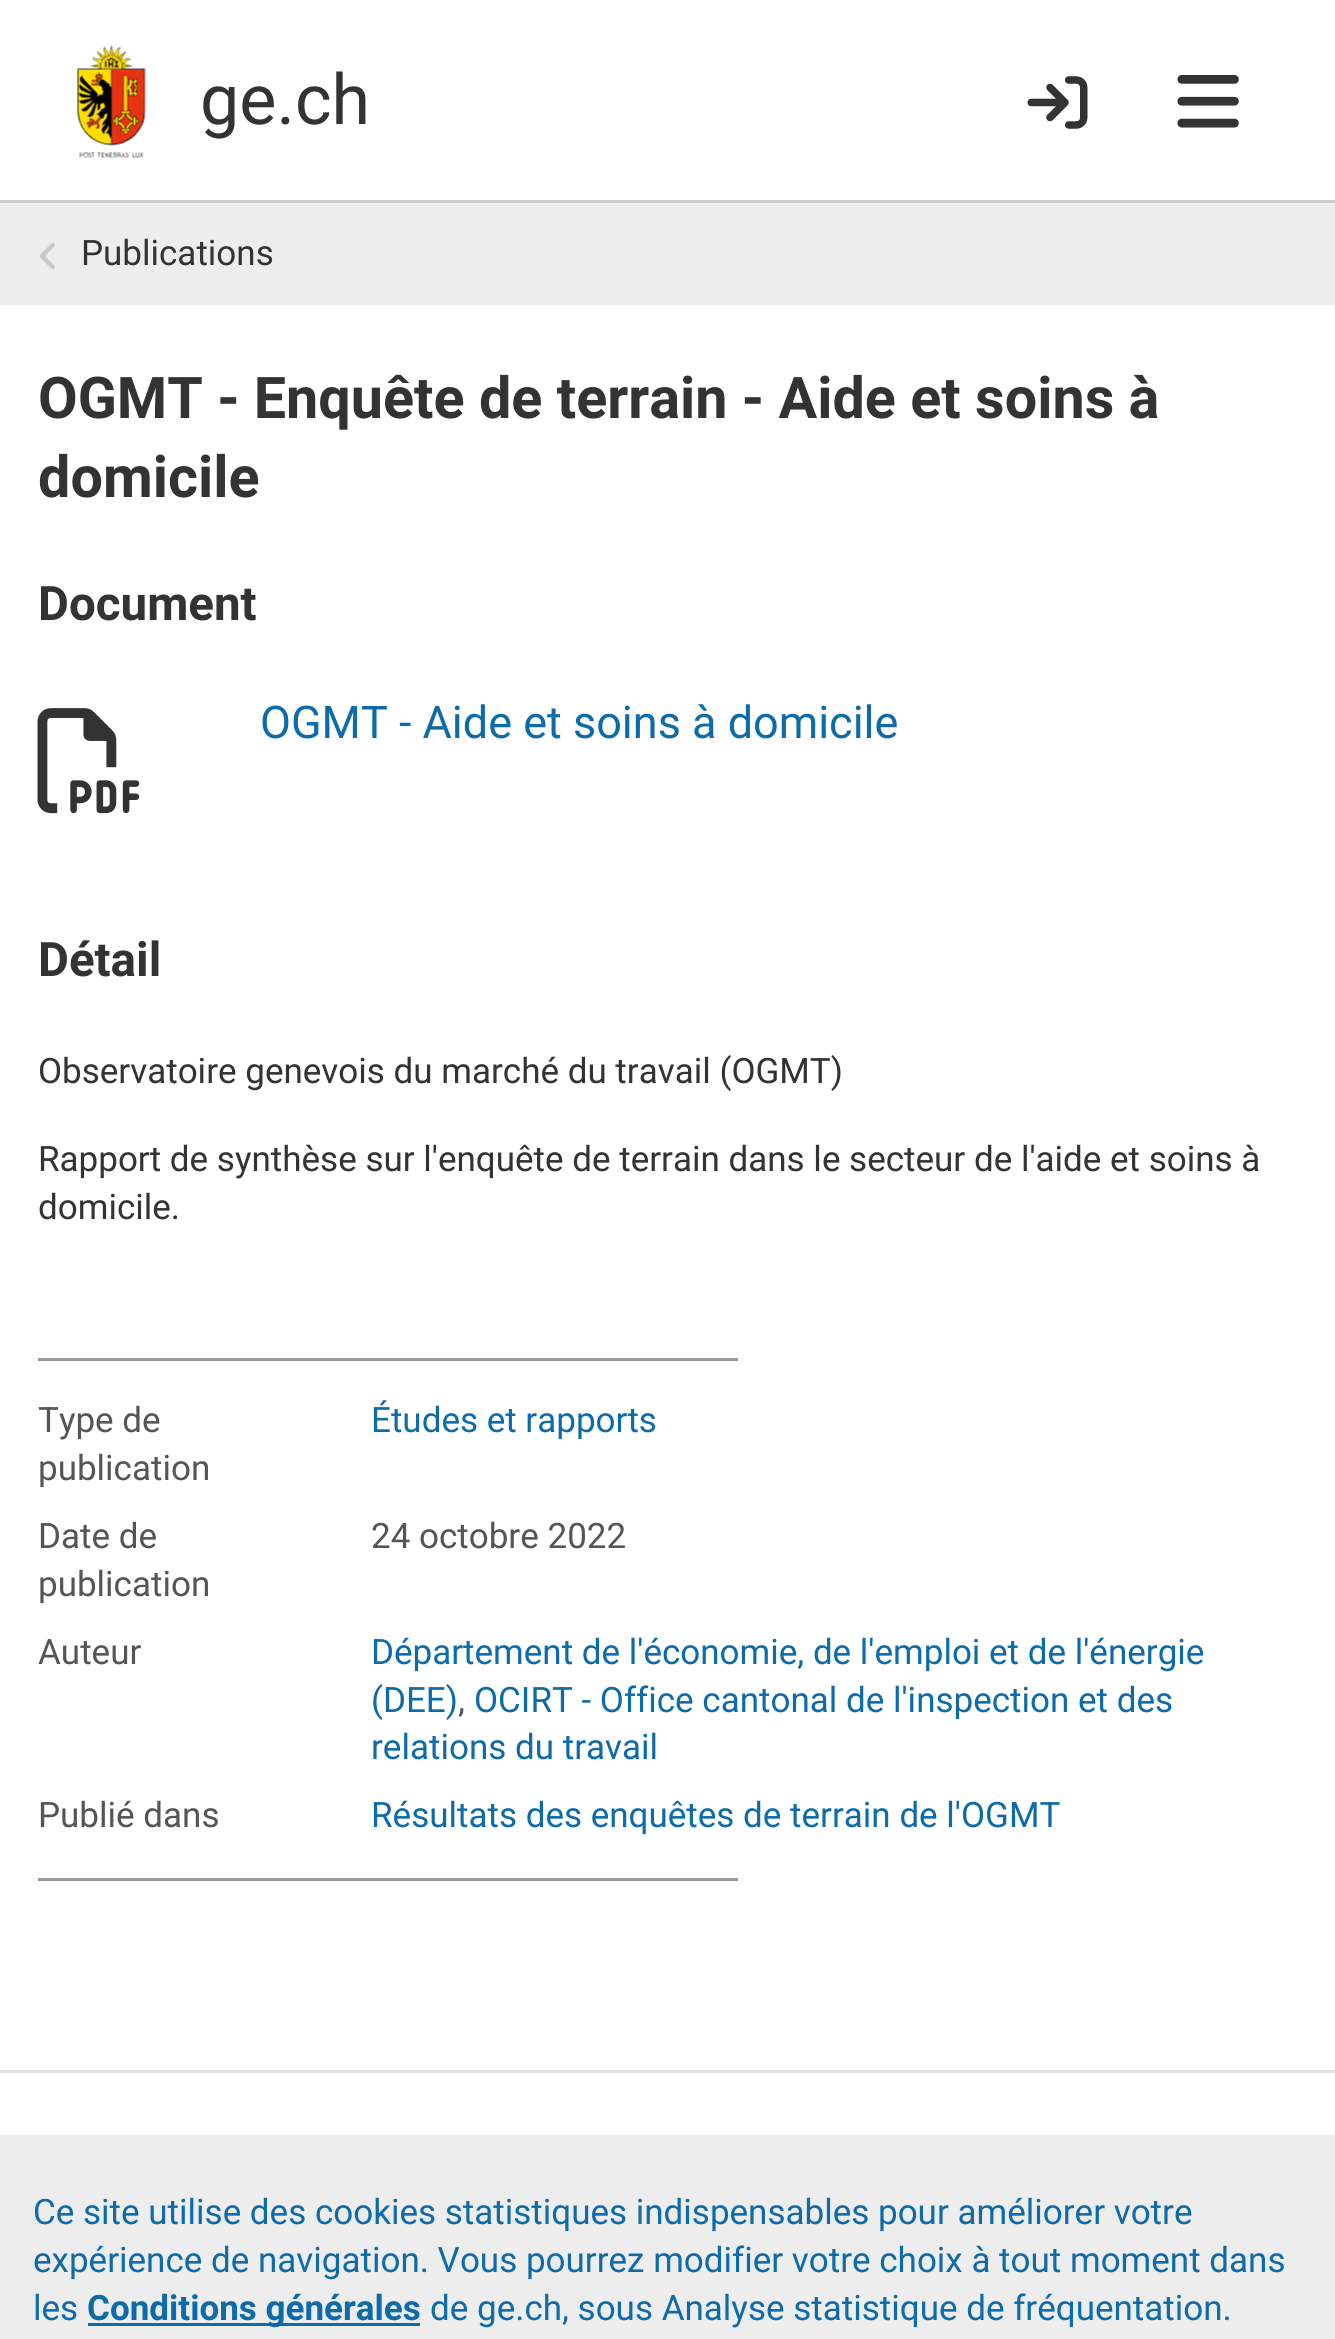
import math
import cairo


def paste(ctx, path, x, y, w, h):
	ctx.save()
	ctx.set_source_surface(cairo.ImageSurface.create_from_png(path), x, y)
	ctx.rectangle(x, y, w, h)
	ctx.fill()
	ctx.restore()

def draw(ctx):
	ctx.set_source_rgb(1, 1, 1)
	ctx.paint()
	ctx.set_source_rgb(0.788, 0.788, 0.788)
	ctx.rectangle(0, 200, 1335, 3)
	ctx.fill()
	paste(ctx, 'media/1.png', 77, 45, 69, 113)
	ctx.select_font_face('Roboto')
	ctx.set_font_size(70)
	ctx.set_source_rgb(0.2, 0.2, 0.2)
	ctx.move_to(200, 124)
	ctx.show_text('ge.ch')
	paste(ctx, 'media/2.png', 1027, 76, 61, 53)
	paste(ctx, 'media/3.png', 1177, 75, 62, 53)
	ctx.set_source_rgb(0.929, 0.929, 0.929)
	ctx.rectangle(0, 203, 1335, 102)
	ctx.fill()
	paste(ctx, 'media/4.png', 39, 243, 16, 27)
	ctx.set_font_size(35)
	ctx.set_source_rgb(0.2, 0.2, 0.2)
	ctx.move_to(81, 265)
	ctx.show_text('Publications')
	ctx.select_font_face('Roboto', cairo.FONT_SLANT_NORMAL, cairo.FONT_WEIGHT_BOLD)
	ctx.set_font_size(57.5)
	ctx.move_to(38, 418)
	ctx.show_text('OGMT - Enquête de terrain - Aide et soins à')
	ctx.move_to(38, 497)
	ctx.show_text('domicile')
	ctx.set_font_size(47.5)
	ctx.move_to(38, 620)
	ctx.show_text('Document')
	paste(ctx, 'media/5.png', 37, 708, 103, 106)
	ctx.select_font_face('Roboto')
	ctx.set_font_size(45)
	ctx.set_source_rgb(0.047, 0.42, 0.659)
	ctx.move_to(260, 738)
	ctx.show_text('OGMT - Aide et soins à domicile')
	ctx.select_font_face('Roboto', cairo.FONT_SLANT_NORMAL, cairo.FONT_WEIGHT_BOLD)
	ctx.set_font_size(47.5)
	ctx.set_source_rgb(0.2, 0.2, 0.2)
	ctx.move_to(38, 976)
	ctx.show_text('Détail')
	ctx.select_font_face('Roboto')
	ctx.set_font_size(35)
	for x, y, s in [
		(38, 1083, 'Observatoire genevois du marché du travail (OGMT)'),
		(38, 1171, 'Rapport de synthèse sur l\'enquête de terrain dans le secteur de l\'aide et soins à'),
		(38, 1219, 'domicile.'),
	]:
		ctx.move_to(x, y)
		ctx.show_text(s)
	ctx.set_source_rgb(0.6, 0.6, 0.6)
	ctx.rectangle(38, 1358, 700, 3)
	ctx.fill()
	ctx.set_source_rgb(0.333, 0.333, 0.333)
	ctx.move_to(38, 1432)
	ctx.show_text('Type de')
	ctx.move_to(38, 1480)
	ctx.show_text('publication')
	ctx.set_source_rgb(0.047, 0.42, 0.659)
	ctx.move_to(371, 1432)
	ctx.show_text('Études et rapports')
	ctx.set_source_rgb(0.333, 0.333, 0.333)
	for x, y, s in [
		(38, 1548, 'Date de'),
		(38, 1596, 'publication'),
		(371, 1548, '24 octobre 2022'),
		(38, 1664, 'Auteur'),
	]:
		ctx.move_to(x, y)
		ctx.show_text(s)
	ctx.set_source_rgb(0.047, 0.42, 0.659)
	ctx.move_to(371, 1664)
	ctx.show_text('Département de l\'économie, de l\'emploi et de l\'énergie')
	ctx.move_to(371, 1712)
	ctx.show_text('(DEE)')
	ctx.set_source_rgb(0.333, 0.333, 0.333)
	ctx.move_to(458, 1712)
	ctx.show_text(',')
	ctx.set_source_rgb(0.047, 0.42, 0.659)
	ctx.move_to(474, 1712)
	ctx.show_text('OCIRT - Office cantonal de l\'inspection et des')
	ctx.move_to(371, 1759)
	ctx.show_text('relations du travail')
	ctx.set_source_rgb(0.333, 0.333, 0.333)
	ctx.move_to(38, 1827)
	ctx.show_text('Publié dans')
	ctx.set_source_rgb(0.047, 0.42, 0.659)
	ctx.move_to(371, 1827)
	ctx.show_text('Résultats des enquêtes de terrain de l\'OGMT')
	ctx.set_source_rgb(0.6, 0.6, 0.6)
	ctx.rectangle(38, 1878, 700, 3)
	ctx.fill()
	ctx.set_source_rgb(0.882, 0.882, 0.882)
	ctx.rectangle(0, 2070, 1335, 3)
	ctx.fill()
	ctx.set_source_rgb(0.929, 0.929, 0.929)
	ctx.rectangle(0, 2135, 1335, 204)
	ctx.fill()
	ctx.set_source_rgb(0.047, 0.42, 0.659)
	for x, y, s in [
		(33, 2224, 'Ce site utilise des cookies statistiques indispensables pour améliorer votre'),
		(33, 2272, 'expérience de navigation. Vous pourrez modifier votre choix à tout moment dans'),
		(33, 2320, 'les'),
	]:
		ctx.move_to(x, y)
		ctx.show_text(s)
	ctx.rectangle(88, 2323, 332, 3)
	ctx.fill()
	ctx.select_font_face('Roboto', cairo.FONT_SLANT_NORMAL, cairo.FONT_WEIGHT_BOLD)
	ctx.move_to(87, 2320)
	ctx.show_text('Conditions générales')
	ctx.select_font_face('Roboto')
	ctx.move_to(430, 2320)
	ctx.show_text('de ge.ch, sous Analyse statistique de fréquentation.')


surface = cairo.ImageSurface(cairo.FORMAT_RGB24, 1335, 2339)
ctx = cairo.Context(surface)
options = cairo.FontOptions()
options.set_hint_metrics(cairo.HINT_METRICS_OFF)
options.set_hint_style(cairo.HINT_STYLE_NONE)
ctx.set_font_options(options)
ctx.set_miter_limit(4)
draw(ctx)
surface.write_to_png('image.png')
